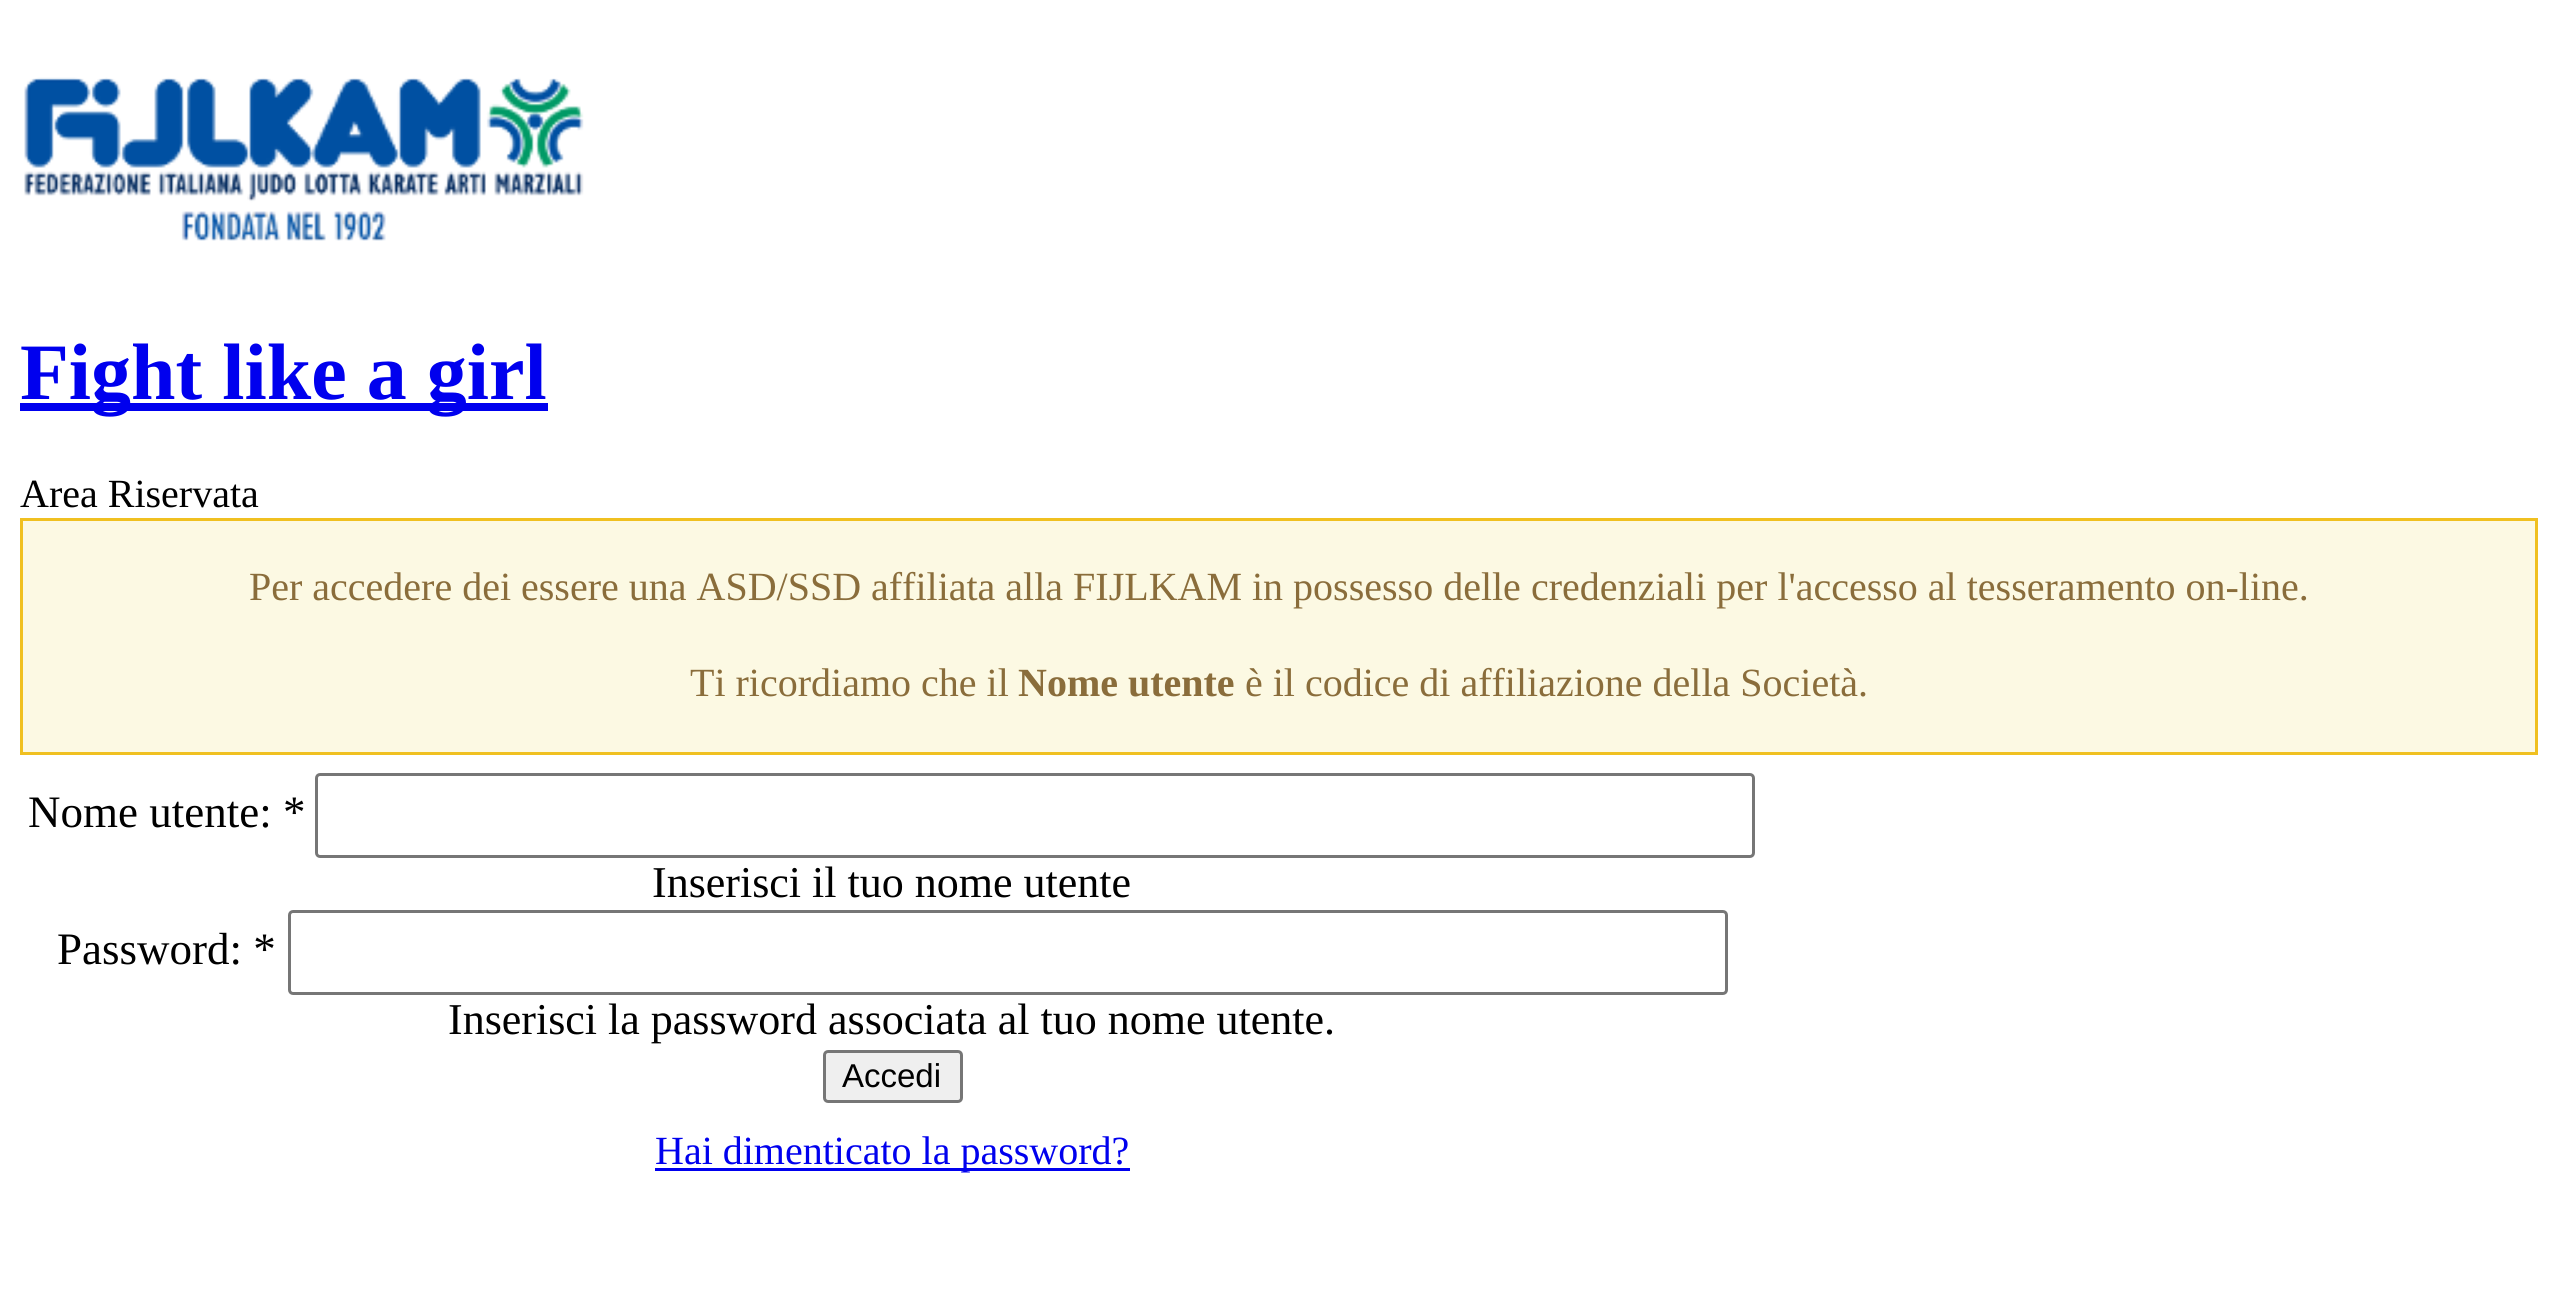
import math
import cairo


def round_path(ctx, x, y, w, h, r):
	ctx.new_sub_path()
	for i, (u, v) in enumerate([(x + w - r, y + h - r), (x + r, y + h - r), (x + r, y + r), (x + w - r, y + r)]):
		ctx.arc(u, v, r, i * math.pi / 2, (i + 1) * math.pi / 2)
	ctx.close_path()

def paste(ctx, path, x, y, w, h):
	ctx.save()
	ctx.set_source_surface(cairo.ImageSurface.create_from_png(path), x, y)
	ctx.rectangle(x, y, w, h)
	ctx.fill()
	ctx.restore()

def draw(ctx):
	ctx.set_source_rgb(1, 1, 1)
	ctx.paint()
	paste(ctx, 'media/1.png', 24, 77, 560, 164)
	ctx.set_source_rgb(0, 0, 0.933)
	ctx.rectangle(20, 403, 528, 8)
	ctx.fill()
	ctx.select_font_face('Liberation Serif', cairo.FONT_SLANT_NORMAL, cairo.FONT_WEIGHT_BOLD)
	ctx.set_font_size(80)
	ctx.move_to(20, 399)
	ctx.show_text('Fight like a girl')
	ctx.select_font_face('Liberation Serif')
	ctx.set_font_size(40)
	ctx.set_source_rgb(0, 0, 0)
	ctx.move_to(20, 507)
	ctx.show_text('Area Riservata')
	ctx.set_source_rgb(0.988, 0.973, 0.89)
	ctx.rectangle(21.5, 519.5, 2515, 234)
	ctx.fill_preserve()
	ctx.set_source_rgb(0.941, 0.753, 0.125)
	ctx.set_line_width(3)
	ctx.stroke()
	ctx.set_source_rgb(0.541, 0.427, 0.231)
	ctx.move_to(249, 600)
	ctx.show_text('Per accedere dei essere una ASD/SSD affiliata alla FIJLKAM in possesso delle credenziali per l\'accesso al tesseramento on-line.')
	ctx.move_to(690, 696)
	ctx.show_text('Ti ricordiamo che il')
	ctx.select_font_face('Liberation Serif', cairo.FONT_SLANT_NORMAL, cairo.FONT_WEIGHT_BOLD)
	ctx.move_to(1018, 696)
	ctx.show_text('Nome utente')
	ctx.select_font_face('Liberation Serif')
	ctx.move_to(1245, 696)
	ctx.show_text('è il codice di affiliazione della Società.')
	ctx.set_font_size(45)
	ctx.set_source_rgb(0, 0, 0)
	ctx.move_to(28, 827)
	ctx.show_text('Nome utente: *')
	round_path(ctx, 316.5, 774.5, 1437, 82, 3.5)
	ctx.set_source_rgb(0.463, 0.463, 0.463)
	ctx.stroke()
	ctx.set_font_size(44)
	ctx.set_source_rgb(0, 0, 0)
	ctx.move_to(652, 897)
	ctx.show_text('Inserisci il tuo nome utente')
	ctx.set_font_size(45)
	ctx.move_to(57, 964)
	ctx.show_text('Password: *')
	round_path(ctx, 289.5, 911.5, 1437, 82, 3.5)
	ctx.set_source_rgb(0.463, 0.463, 0.463)
	ctx.stroke()
	ctx.set_font_size(44)
	ctx.set_source_rgb(0, 0, 0)
	ctx.move_to(448, 1034)
	ctx.show_text('Inserisci la password associata al tuo nome utente.')
	ctx.set_source_rgb(0.937, 0.937, 0.937)
	round_path(ctx, 824.5, 1051.5, 137, 50, 3.5)
	ctx.fill_preserve()
	ctx.set_source_rgb(0.463, 0.463, 0.463)
	ctx.stroke()
	ctx.select_font_face('Liberation Sans')
	ctx.set_font_size(33)
	ctx.set_source_rgb(0, 0, 0)
	ctx.move_to(842, 1087)
	ctx.show_text('Accedi')
	ctx.set_source_rgb(0, 0, 0.933)
	ctx.rectangle(655, 1168, 475, 3)
	ctx.fill()
	ctx.select_font_face('Liberation Serif')
	ctx.set_font_size(40)
	ctx.move_to(655, 1164)
	ctx.show_text('Hai dimenticato la password?')


surface = cairo.ImageSurface(cairo.FORMAT_RGB24, 2557, 1304)
ctx = cairo.Context(surface)
options = cairo.FontOptions()
options.set_hint_metrics(cairo.HINT_METRICS_OFF)
options.set_hint_style(cairo.HINT_STYLE_NONE)
ctx.set_font_options(options)
ctx.set_miter_limit(4)
draw(ctx)
surface.write_to_png('image.png')
